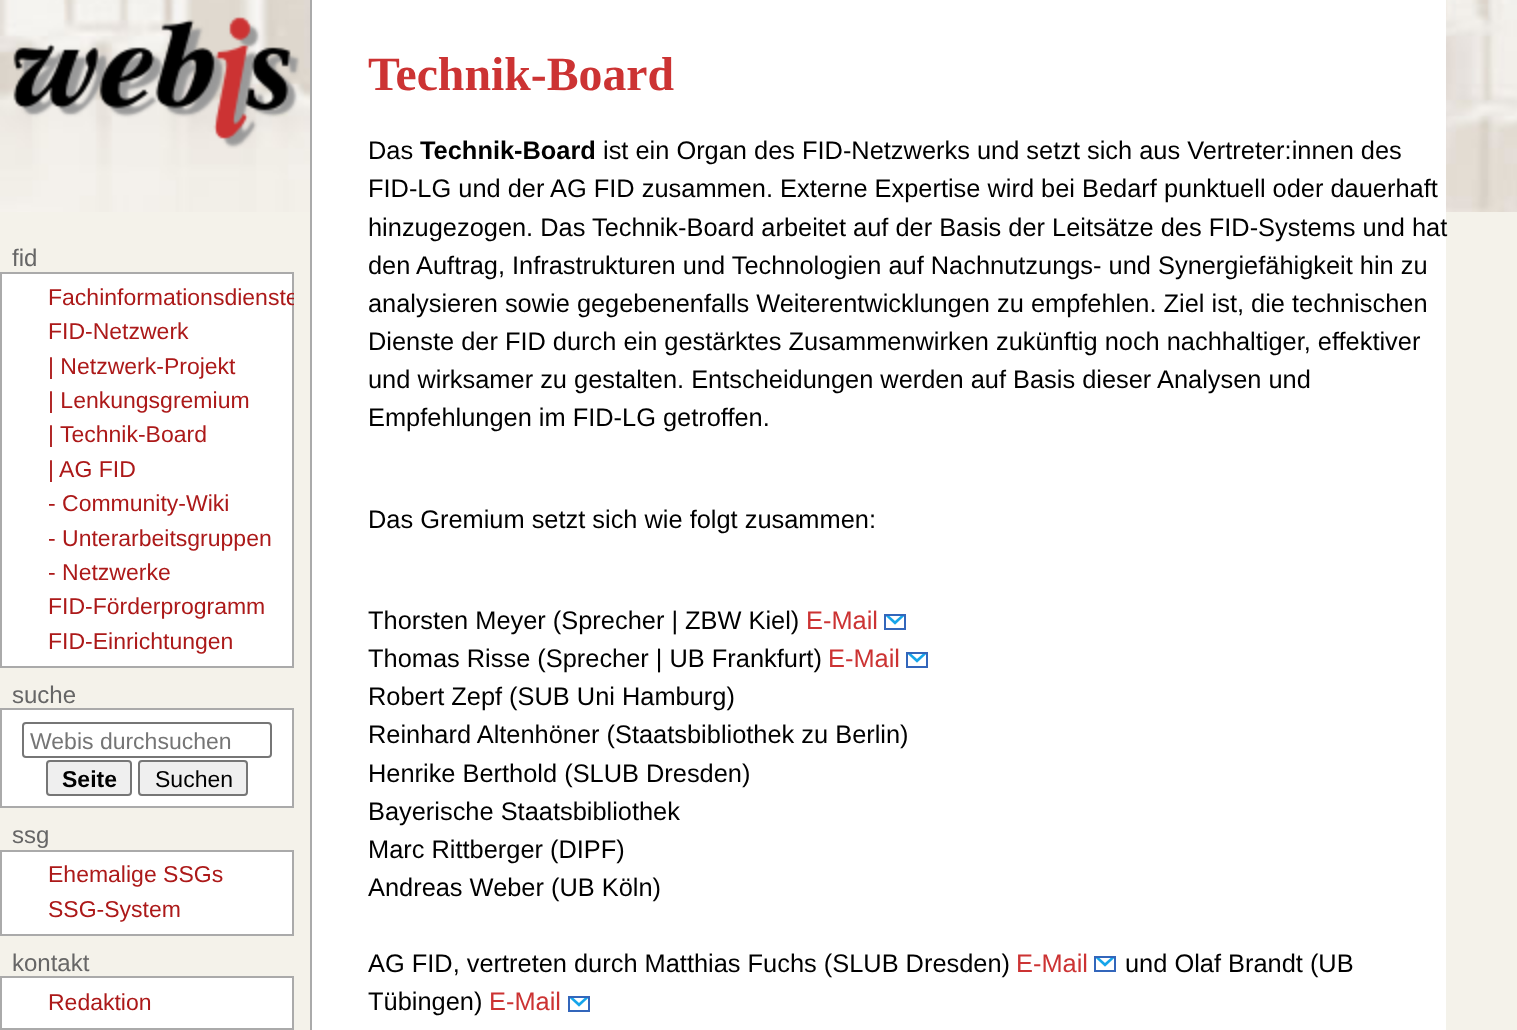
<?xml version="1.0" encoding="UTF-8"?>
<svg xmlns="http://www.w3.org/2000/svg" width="1517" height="1030">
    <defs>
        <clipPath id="clip1"><rect x="0" y="244" width="294" height="424"/></clipPath>
    </defs>
    <rect width="100%" height="100%" fill="#F4F2EA"/>
    <image x="0" y="0" width="1517" height="212" href="img_01.png"/>
    <image x="13" y="16" width="287" height="133" href="img_02.png"/>
    <text x="12" y="266" font-family="Liberation Sans" font-size="24" fill="#666666">fid</text>
    <rect x="1" y="273" width="292" height="394" fill="#FFFFFF" stroke="#AAAAAA" stroke-width="2"/>
    <g clip-path="url(#clip1)">
        <text x="48" y="305" font-family="Liberation Sans" font-size="23" fill="#AC1919">Fachinformationsdienste</text>
    </g>
    <text font-family="Liberation Sans" font-size="23" fill="#AC1919">
        <tspan x="48" y="339">FID-Netzwerk</tspan>
        <tspan x="48" y="374">| Netzwerk-Projekt</tspan>
        <tspan x="48" y="408">| Lenkungsgremium</tspan>
        <tspan x="48" y="442">| Technik-Board</tspan>
        <tspan x="48" y="477">| AG FID</tspan>
        <tspan x="48" y="511">- Community-Wiki</tspan>
        <tspan x="48" y="546">- Unterarbeitsgruppen</tspan>
        <tspan x="48" y="580">- Netzwerke</tspan>
        <tspan x="48" y="614">FID-Förderprogramm</tspan>
        <tspan x="48" y="649">FID-Einrichtungen</tspan>
    </text>
    <text x="12" y="703" font-family="Liberation Sans" font-size="24" fill="#666666">suche</text>
    <rect x="1" y="709" width="292" height="98" fill="#FFFFFF" stroke="#AAAAAA" stroke-width="2"/>
    <rect x="23" y="723" width="248" height="34" rx="3" fill="none" stroke="#767676" stroke-width="2"/>
    <text x="30" y="749" font-family="Liberation Sans" font-size="23" fill="#757575">Webis durchsuchen</text>
    <rect x="47" y="761" width="84" height="34" rx="3" fill="#EFEFEF" stroke="#767676" stroke-width="2"/>
    <text x="62" y="787" font-family="Liberation Sans" font-size="23" font-weight="700" fill="#000000">Seite</text>
    <rect x="139" y="761" width="108" height="34" rx="3" fill="#EFEFEF" stroke="#767676" stroke-width="2"/>
    <text x="155" y="787" font-family="Liberation Sans" font-size="23" fill="#000000">Suchen</text>
    <text x="12" y="843" font-family="Liberation Sans" font-size="24" fill="#666666">ssg</text>
    <rect x="1" y="851" width="292" height="84" fill="#FFFFFF" stroke="#AAAAAA" stroke-width="2"/>
    <text font-family="Liberation Sans" font-size="23" fill="#AC1919">
        <tspan x="48" y="882">Ehemalige SSGs</tspan>
        <tspan x="48" y="917">SSG-System</tspan>
    </text>
    <text x="12" y="971" font-family="Liberation Sans" font-size="24" fill="#666666">kontakt</text>
    <rect x="1" y="977" width="292" height="52" fill="#FFFFFF" stroke="#AAAAAA" stroke-width="2"/>
    <text x="48" y="1010" font-family="Liberation Sans" font-size="23" fill="#AC1919">Redaktion</text>
    <rect x="312" y="0" width="1134" height="1030" fill="#FFFFFF"/>
    <rect x="310" y="0" width="2" height="1030" fill="#AAAAAA"/>
    <text x="368" y="90" font-family="Liberation Serif" font-size="47.75" font-weight="700" fill="#CC3333">Technik-Board</text>
    <text x="368" y="159" font-family="Liberation Sans" font-size="25.4" fill="#000000">Das</text>
    <text x="420" y="159" font-family="Liberation Sans" font-size="25.4" font-weight="700" fill="#000000">Technik-Board</text>
    <text x="603" y="159" font-family="Liberation Sans" font-size="25.4" fill="#000000">ist ein Organ des FID-Netzwerks und setzt sich aus Vertreter:innen des</text>
    <text font-family="Liberation Sans" font-size="25.4" fill="#000000">
        <tspan x="368" y="197">FID-LG und der AG FID zusammen. Externe Expertise wird bei Bedarf punktuell oder dauerhaft</tspan>
        <tspan x="368" y="236">hinzugezogen. Das Technik-Board arbeitet auf der Basis der Leitsätze des FID-Systems und hat</tspan>
        <tspan x="368" y="274">den Auftrag, Infrastrukturen und Technologien auf Nachnutzungs- und Synergiefähigkeit hin zu</tspan>
        <tspan x="368" y="312">analysieren sowie gegebenenfalls Weiterentwicklungen zu empfehlen. Ziel ist, die technischen</tspan>
        <tspan x="368" y="350">Dienste der FID durch ein gestärktes Zusammenwirken zukünftig noch nachhaltiger, effektiver</tspan>
        <tspan x="368" y="388">und wirksamer zu gestalten. Entscheidungen werden auf Basis dieser Analysen und</tspan>
        <tspan x="368" y="426">Empfehlungen im FID-LG getroffen.</tspan>
    </text>
    <text x="368" y="528" font-family="Liberation Sans" font-size="25.4" fill="#000000">Das Gremium setzt sich wie folgt zusammen:</text>
    <text x="368" y="629" font-family="Liberation Sans" font-size="25.4" fill="#000000">Thorsten Meyer (Sprecher | ZBW Kiel)</text>
    <text x="806" y="629" font-family="Liberation Sans" font-size="25.4" fill="#CC3333">E-Mail</text>
    <image x="884" y="614" width="22" height="16" href="img_03.png"/>
    <text x="368" y="667" font-family="Liberation Sans" font-size="25.4" fill="#000000">Thomas Risse (Sprecher | UB Frankfurt)</text>
    <text x="828" y="667" font-family="Liberation Sans" font-size="25.4" fill="#CC3333">E-Mail</text>
    <image x="906" y="652" width="22" height="16" href="img_03.png"/>
    <text font-family="Liberation Sans" font-size="25.4" fill="#000000">
        <tspan x="368" y="705">Robert Zepf (SUB Uni Hamburg)</tspan>
        <tspan x="368" y="743">Reinhard Altenhöner (Staatsbibliothek zu Berlin)</tspan>
        <tspan x="368" y="782">Henrike Berthold (SLUB Dresden)</tspan>
        <tspan x="368" y="820">Bayerische Staatsbibliothek</tspan>
        <tspan x="368" y="858">Marc Rittberger (DIPF)</tspan>
        <tspan x="368" y="896">Andreas Weber (UB Köln)</tspan>
    </text>
    <text x="368" y="972" font-family="Liberation Sans" font-size="25.4" fill="#000000">AG FID, vertreten durch Matthias Fuchs (SLUB Dresden)</text>
    <text x="1016" y="972" font-family="Liberation Sans" font-size="25.4" fill="#CC3333">E-Mail</text>
    <image x="1094" y="956" width="22" height="16" href="img_03.png"/>
    <text x="1125" y="972" font-family="Liberation Sans" font-size="25.4" fill="#000000">und Olaf Brandt (UB</text>
    <text x="368" y="1010" font-family="Liberation Sans" font-size="25.4" fill="#000000">Tübingen)</text>
    <text x="489" y="1010" font-family="Liberation Sans" font-size="25.4" fill="#CC3333">E-Mail</text>
    <image x="568" y="996" width="22" height="16" href="img_03.png"/>
</svg>
